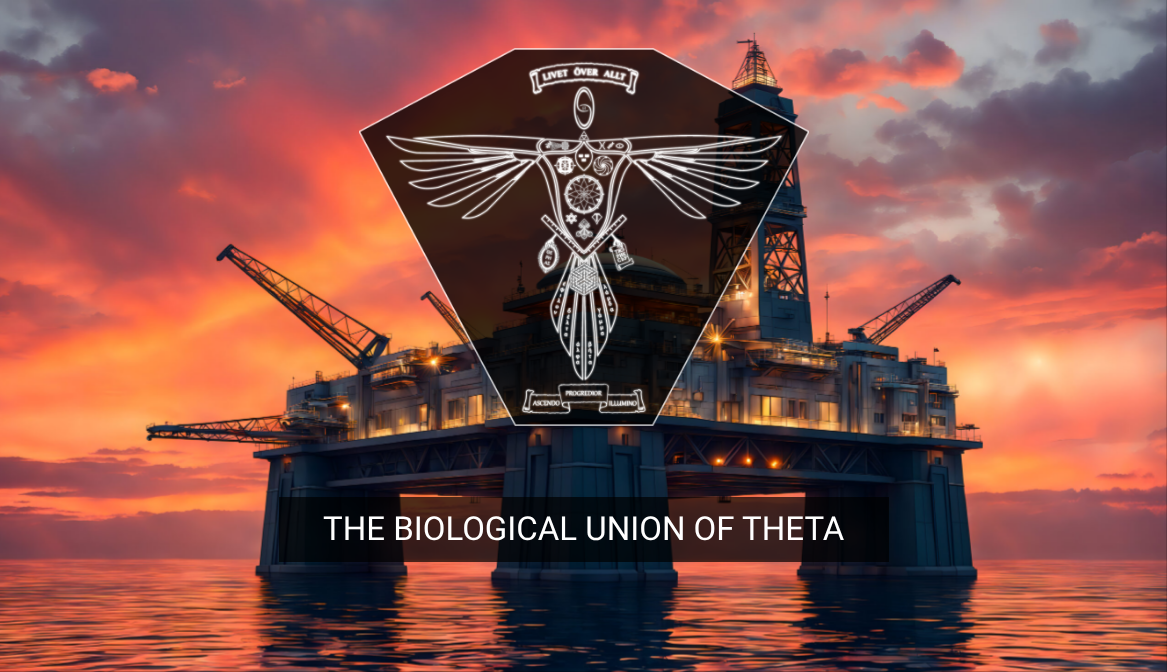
<?xml version="1.0" encoding="UTF-8"?>
<svg xmlns="http://www.w3.org/2000/svg" width="1167" height="672">
    <rect width="100%" height="100%" fill="#000000"/>
    <image x="0" y="0" width="1167" height="672" href="img_01.png"/>
    <image x="359" y="48" width="450" height="378" href="img_02.png"/>
    <rect x="279" y="497" width="610" height="65" fill="#000000" fill-opacity="0.69"/>
    <text x="323" y="540" font-family="Roboto" font-size="33" fill="#FFFFFF">THE BIOLOGICAL UNION OF THETA</text>
</svg>
